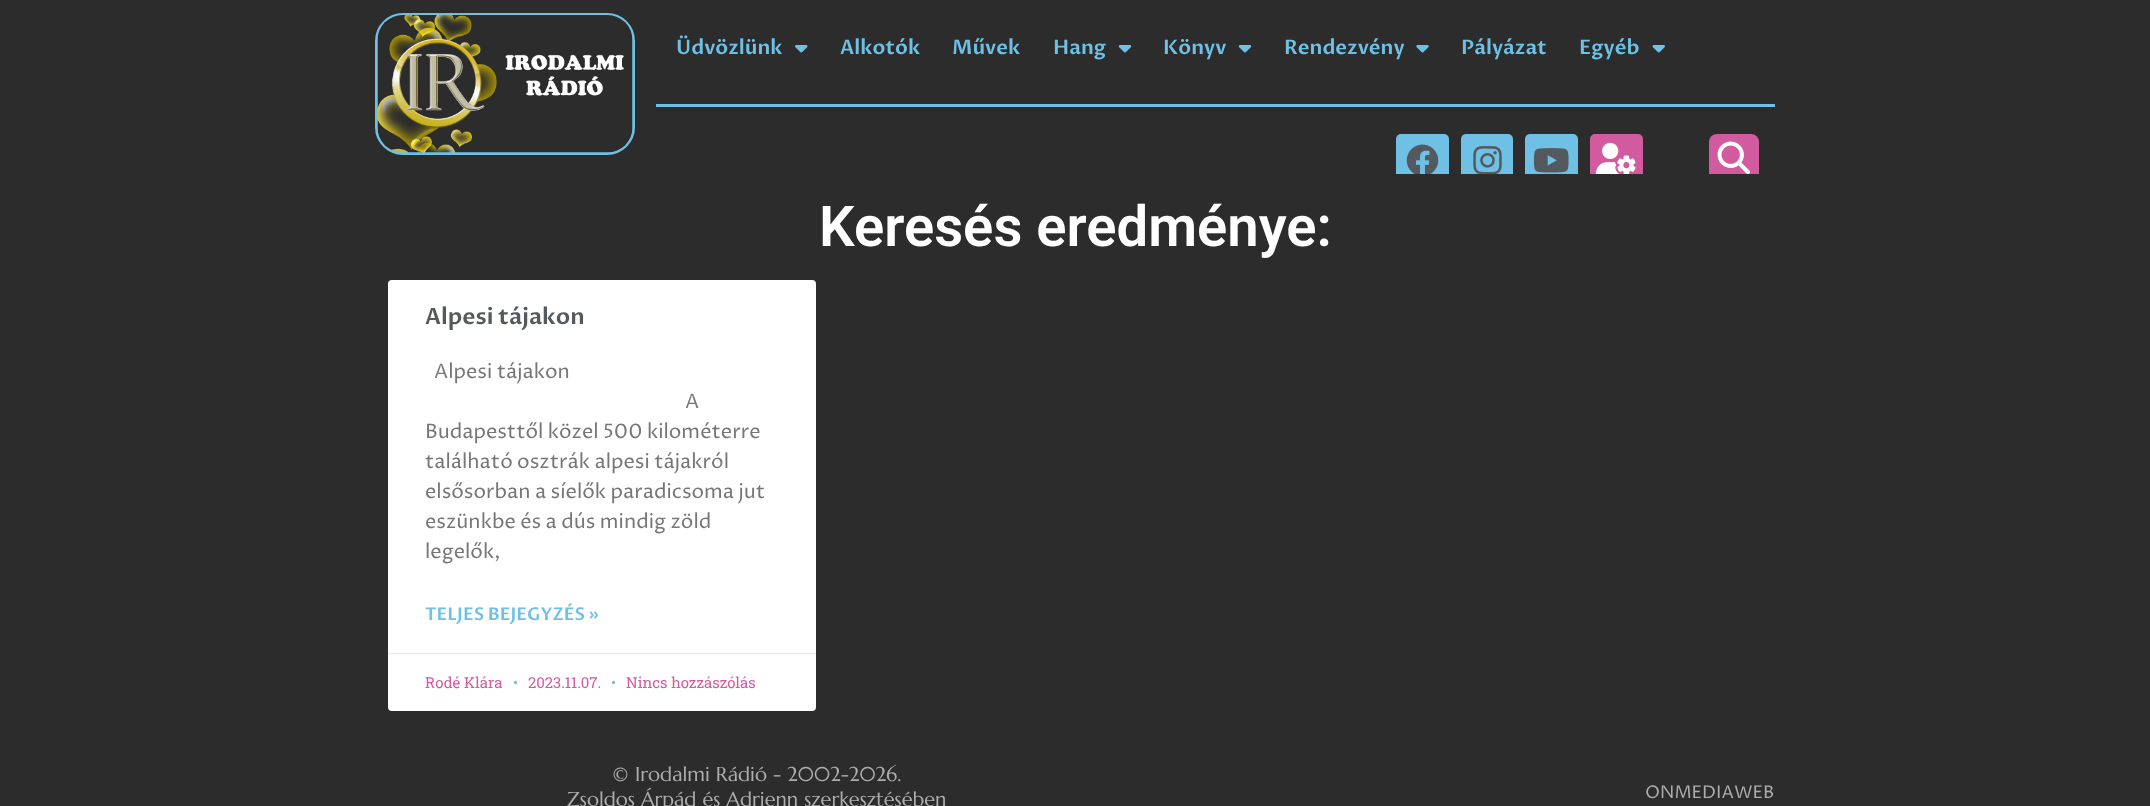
<?xml version="1.0" encoding="UTF-8"?>
<svg xmlns="http://www.w3.org/2000/svg" width="2150" height="806">
    <rect width="100%" height="100%" fill="#2C2C2C"/>
    <rect x="376.5" y="14.5" width="257" height="139" rx="26.5" fill="none" stroke="#6EC1E4" stroke-width="3"/>
    <image x="377" y="15" width="256" height="138" href="img_01.png"/>
    <text x="676" y="54" font-family="Proza Libre" font-size="20" font-weight="600" fill="#6EC1E4">Üdvözlünk</text>
    <image x="795" y="45" width="13" height="8" href="img_02.png"/>
    <text x="840" y="54" font-family="Proza Libre" font-size="20" font-weight="600" fill="#6EC1E4">Alkotók</text>
    <text x="952" y="54" font-family="Proza Libre" font-size="20" font-weight="600" fill="#6EC1E4">Művek</text>
    <text x="1053" y="54" font-family="Proza Libre" font-size="20" font-weight="600" fill="#6EC1E4">Hang</text>
    <image x="1118" y="45" width="14" height="8" href="img_03.png"/>
    <text x="1163" y="54" font-family="Proza Libre" font-size="20" font-weight="600" fill="#6EC1E4">Könyv</text>
    <image x="1238" y="45" width="14" height="8" href="img_03.png"/>
    <text x="1284" y="54" font-family="Proza Libre" font-size="20" font-weight="600" fill="#6EC1E4">Rendezvény</text>
    <image x="1416" y="45" width="13" height="8" href="img_04.png"/>
    <text x="1461" y="54" font-family="Proza Libre" font-size="20" font-weight="600" fill="#6EC1E4">Pályázat</text>
    <text x="1579" y="54" font-family="Proza Libre" font-size="20" font-weight="600" fill="#6EC1E4">Egyéb</text>
    <image x="1652" y="45" width="13" height="8" href="img_05.png"/>
    <rect x="656" y="104" width="1119" height="3" fill="#6EC1E4"/>
    <rect x="1396" y="134" width="53" height="52" rx="5" fill="#6EC1E4"/>
    <image x="1406" y="144" width="33" height="30" href="img_06.png"/>
    <rect x="1461" y="134" width="52" height="52" rx="5" fill="#6EC1E4"/>
    <image x="1473" y="146" width="29" height="28" href="img_07.png"/>
    <rect x="1525" y="134" width="53" height="52" rx="5" fill="#6EC1E4"/>
    <image x="1533" y="148" width="36" height="25" href="img_08.png"/>
    <rect x="1590" y="134" width="53" height="52" rx="5" fill="#D25B9F"/>
    <image x="1595" y="142" width="41" height="32" href="img_09.png"/>
    <rect x="1709" y="134" width="50" height="50" rx="8" fill="#D25B9F"/>
    <image x="1717" y="141" width="33" height="33" href="img_10.png"/>
    <rect x="1396" y="174" width="363" height="12" fill="#2C2C2C"/>
    <text x="819" y="246" font-family="Roboto" font-size="56.25" font-weight="600" fill="#FFFFFF">Keresés eredménye:</text>
    <rect x="388" y="280" width="428" height="431" rx="4" fill="#FFFFFF"/>
    <text x="425" y="324" font-family="Proza Libre" font-size="22.5" font-weight="600" fill="#54595F">Alpesi tájakon</text>
    <text x="434" y="378" font-family="Proza Libre" font-size="20" fill="#777777">Alpesi tájakon</text>
    <text x="685" y="408" font-family="Proza Libre" font-size="20" fill="#777777">A</text>
    <text font-family="Proza Libre" font-size="20" fill="#777777">
        <tspan x="425" y="438">Budapesttől közel 500 kilométerre</tspan>
        <tspan x="425" y="468">található osztrák alpesi tájakról</tspan>
        <tspan x="425" y="498">elsősorban a síelők paradicsoma jut</tspan>
        <tspan x="425" y="528">eszünkbe és a dús mindig zöld</tspan>
        <tspan x="425" y="558">legelők,</tspan>
    </text>
    <text x="425" y="620" font-family="Proza Libre" font-size="17.5" font-weight="600" fill="#6EC1E4">TELJES BEJEGYZÉS »</text>
    <rect x="388" y="653" width="428" height="1" fill="#EAEAEA"/>
    <text x="425" y="688" font-family="Roboto Slab" font-size="15" fill="#D25B9F">Rodé Klára</text>
    <text x="513" y="688" font-family="Roboto Slab" font-size="15" fill="#6EC1E4">•</text>
    <text x="528" y="688" font-family="Roboto Slab" font-size="15" fill="#D25B9F">2023.11.07.</text>
    <text x="611" y="688" font-family="Roboto Slab" font-size="15" fill="#6EC1E4">•</text>
    <text x="626" y="688" font-family="Roboto Slab" font-size="15" fill="#D25B9F">Nincs hozzászólás</text>
    <text x="612" y="781" font-family="Marcellus" font-size="20" fill="#ADADAD">© Irodalmi Rádió - 2002-2026.</text>
    <text x="567" y="806" font-family="Marcellus" font-size="20" fill="#ADADAD">Zsoldos Árpád és Adrienn szerkesztésében</text>
    <text x="1645" y="798" font-family="Proza Libre" font-size="17.5" fill="#ADADAD">ONMEDIAWEB</text>
</svg>
